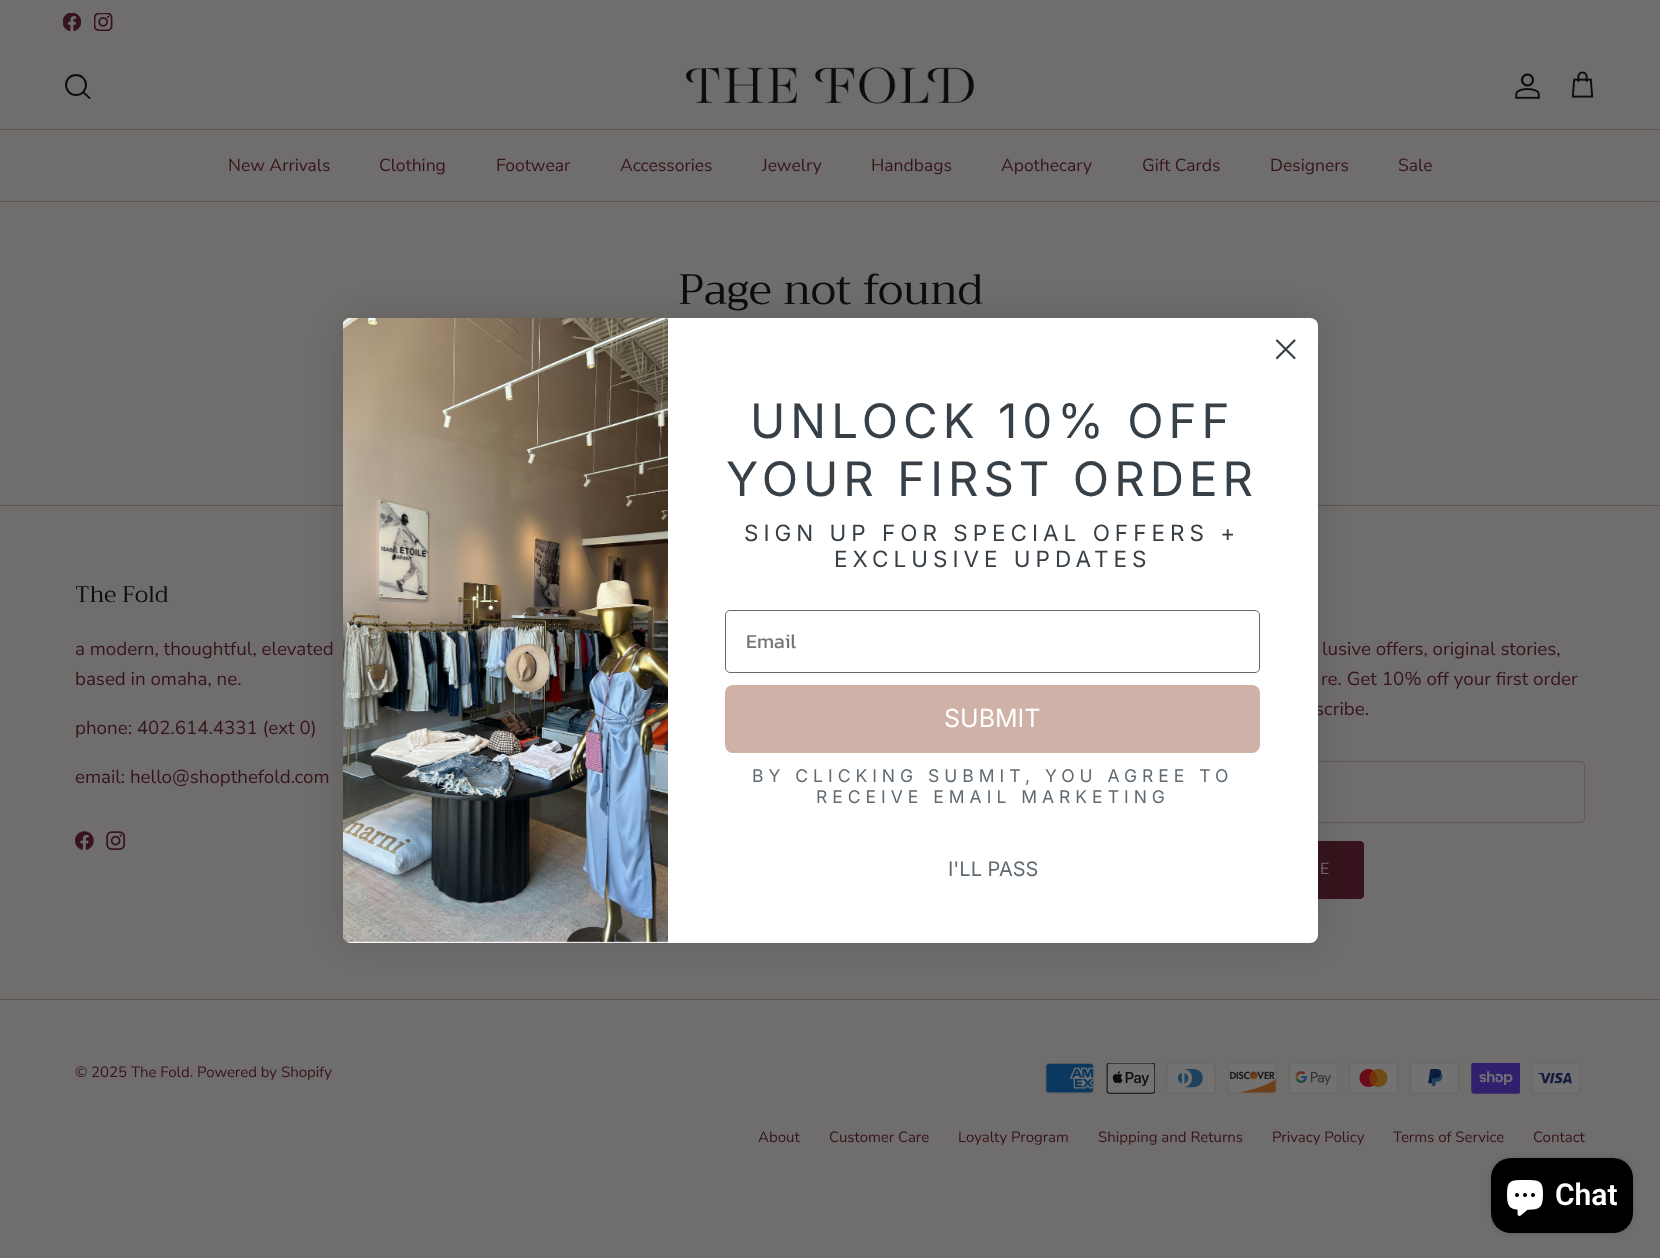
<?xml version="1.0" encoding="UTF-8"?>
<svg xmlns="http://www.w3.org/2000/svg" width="1660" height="1258">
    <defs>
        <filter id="blur1" x="-50%" y="-200%" width="200%" height="500%"><feGaussianBlur stdDeviation="19"/></filter>
        <filter id="blur2" x="-50%" y="-200%" width="200%" height="500%"><feGaussianBlur stdDeviation="3"/></filter>
    </defs>
    <rect width="100%" height="100%" fill="#706E6D"/>
    <image x="63" y="13" width="18" height="18" href="img_01.png"/>
    <image x="94" y="13" width="19" height="18" href="img_02.png"/>
    <rect x="0" y="129" width="1660" height="1" fill="#5F534F"/>
    <circle cx="76" cy="85" r="10" fill="none" stroke="#0C0C0C" stroke-width="1.9"/>
    <path d="M 83.5 92.5 L 89.5 98" fill="none" stroke="#0C0C0C" stroke-width="1.9" stroke-linecap="square"/>
    <image x="686" y="67" width="288" height="37" href="img_03.png"/>
    <image x="1515" y="73" width="25" height="26" href="img_04.png"/>
    <image x="1571" y="71" width="23" height="27" href="img_05.png"/>
    <rect x="0" y="201" width="1660" height="1" fill="#5F534F"/>
    <text x="228" y="171" font-family="Nunito Sans" font-size="17.5" fill="#37141D">New Arrivals</text>
    <text x="379" y="171" font-family="Nunito Sans" font-size="17.5" fill="#37141D">Clothing</text>
    <text x="496" y="171" font-family="Nunito Sans" font-size="17.5" fill="#37141D">Footwear</text>
    <text x="620" y="171" font-family="Nunito Sans" font-size="17.5" fill="#37141D">Accessories</text>
    <text x="762" y="171" font-family="Nunito Sans" font-size="17.5" fill="#37141D">Jewelry</text>
    <text x="871" y="171" font-family="Nunito Sans" font-size="17.5" fill="#37141D">Handbags</text>
    <text x="1001" y="171" font-family="Nunito Sans" font-size="17.5" fill="#37141D">Apothecary</text>
    <text x="1142" y="171" font-family="Nunito Sans" font-size="17.5" fill="#37141D">Gift Cards</text>
    <text x="1270" y="171" font-family="Nunito Sans" font-size="17.5" fill="#37141D">Designers</text>
    <text x="1398" y="171" font-family="Nunito Sans" font-size="17.5" fill="#37141D">Sale</text>
    <text x="678" y="304" font-family="Trirong" font-size="42.5" fill="#0C0C0C">Page not found</text>
    <rect x="0" y="505" width="1660" height="1" fill="#5F534F"/>
    <rect x="1198.5" y="761.5" width="386" height="61" rx="3.5" fill="none" stroke="#625859"/>
    <rect x="1198.5" y="841.5" width="165" height="57" rx="3.5" fill="#37141D" stroke="#37141D"/>
    <rect x="0" y="999" width="1660" height="1" fill="#5F534F"/>
    <rect x="343" y="318" width="975" height="625" rx="8" fill="#000000" fill-opacity="0.15" filter="url(#blur1)"/>
    <text x="1315" y="715" font-family="Nunito Sans" font-size="18.75" fill="#37141D">scribe.</text>
    <rect x="343" y="318" width="975" height="625" rx="8" fill="#FFFFFF"/>
    <path d="M 1277 340.5 L 1294.5 358 M 1277 358 L 1294.5 340.5 Z" fill="none" stroke="#373F47" stroke-width="2.2" stroke-linecap="round" stroke-linejoin="round"/>
    <image x="343" y="318" width="325" height="625" href="img_06.png"/>
    <text x="750" y="438" font-family="Inter" font-size="47.5" letter-spacing="5" fill="#373F47">UNLOCK 10% OFF</text>
    <text x="726" y="496" font-family="Inter" font-size="47.5" letter-spacing="5" fill="#373F47">YOUR FIRST ORDER</text>
    <text x="744" y="541" font-family="Inter" font-size="22.5" letter-spacing="5" fill="#373F47">SIGN UP FOR SPECIAL OFFERS +</text>
    <text x="834" y="567" font-family="Inter" font-size="22.5" letter-spacing="5" fill="#373F47">EXCLUSIVE UPDATES</text>
    <rect x="725.5" y="610.5" width="534" height="62" rx="4.5" fill="none" stroke="#606A72"/>
    <text x="746" y="648" font-family="Kanit" font-size="20" fill="#767676">Email</text>
    <rect x="725" y="685" width="535" height="68" rx="8" fill="#D0B1A7"/>
    <text x="944" y="727" font-family="Inter" font-size="25" fill="#FFFFFF">SUBMIT</text>
    <text x="752" y="782" font-family="Inter" font-size="17.5" letter-spacing="5" fill="#606A72">BY CLICKING SUBMIT, YOU AGREE TO</text>
    <text x="816" y="803" font-family="Inter" font-size="17.5" letter-spacing="5" fill="#606A72">RECEIVE EMAIL MARKETING</text>
    <text x="948" y="876" font-family="Inter" font-size="20" fill="#606A72">I'LL PASS</text>
    <text x="75" y="602" font-family="Trirong" font-size="22.5" fill="#0C0C0C">The Fold</text>
    <text font-family="Nunito Sans" font-size="18.75" fill="#37141D">
        <tspan x="75" y="655">a modern, thoughtful, elevated</tspan>
        <tspan x="75" y="685">based in omaha, ne.</tspan>
    </text>
    <text x="75" y="734" font-family="Nunito Sans" font-size="18.75" fill="#37141D">phone: 402.614.4331 (ext 0)</text>
    <text x="75" y="783" font-family="Nunito Sans" font-size="18.75" fill="#37141D">email: hello@shopthefold.com</text>
    <image x="75" y="831" width="19" height="19" href="img_07.png"/>
    <image x="106" y="831" width="19" height="19" href="img_08.png"/>
    <text x="1322" y="655" font-family="Nunito Sans" font-size="18.75" fill="#37141D">lusive offers, original stories,</text>
    <text x="1321" y="685" font-family="Nunito Sans" font-size="18.75" fill="#37141D">re. Get 10% off your first order</text>
    <text x="1320" y="874" font-family="Nunito Sans" font-size="16" letter-spacing="1" fill="#706E6D">E</text>
    <text x="75" y="1077" font-family="Nunito Sans" font-size="15" fill="#37141D">© 2025 The Fold. Powered by Shopify</text>
    <image x="1045" y="1063" width="50" height="31" href="img_09.png"/>
    <image x="1106" y="1063" width="49" height="31" href="img_10.png"/>
    <image x="1166" y="1063" width="50" height="31" href="img_11.png"/>
    <image x="1228" y="1063" width="49" height="31" href="img_12.png"/>
    <image x="1289" y="1063" width="49" height="31" href="img_13.png"/>
    <image x="1349" y="1063" width="49" height="31" href="img_14.png"/>
    <image x="1410" y="1063" width="50" height="31" href="img_15.png"/>
    <image x="1471" y="1063" width="49" height="31" href="img_16.png"/>
    <image x="1531" y="1063" width="50" height="31" href="img_17.png"/>
    <text x="758" y="1142" font-family="Nunito Sans" font-size="15" fill="#37141D">About</text>
    <text x="829" y="1142" font-family="Nunito Sans" font-size="15" fill="#37141D">Customer Care</text>
    <text x="958" y="1142" font-family="Nunito Sans" font-size="15" fill="#37141D">Loyalty Program</text>
    <text x="1098" y="1142" font-family="Nunito Sans" font-size="15" fill="#37141D">Shipping and Returns</text>
    <text x="1272" y="1142" font-family="Nunito Sans" font-size="15" fill="#37141D">Privacy Policy</text>
    <text x="1393" y="1142" font-family="Nunito Sans" font-size="15" fill="#37141D">Terms of Service</text>
    <text x="1533" y="1142" font-family="Nunito Sans" font-size="15" fill="#37141D">Contact</text>
    <rect x="1491" y="1158" width="142" height="75" rx="20" fill="#000000" fill-opacity="0.15" filter="url(#blur2)"/>
    <rect x="1491" y="1158" width="142" height="75" rx="20" fill="#000000"/>
    <image x="1507" y="1180" width="36" height="36" href="img_18.png"/>
    <text x="1555" y="1205" font-family="Roboto" font-size="30" font-weight="600" fill="#FFFFFF">Chat</text>
</svg>
